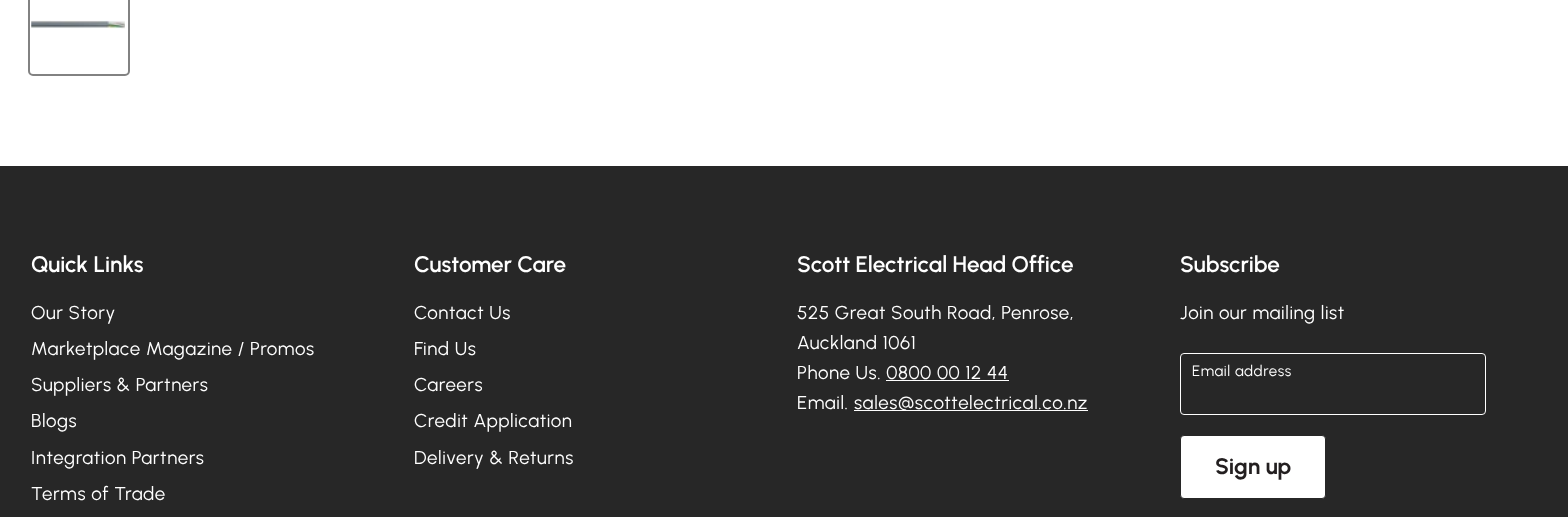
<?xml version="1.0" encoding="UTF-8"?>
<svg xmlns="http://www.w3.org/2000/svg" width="1568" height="517">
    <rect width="100%" height="100%" fill="#FFFFFF"/>
    <rect x="29" y="-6" width="100" height="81" rx="4" fill="none" stroke="#828282" stroke-width="2"/>
    <image x="31" y="20" width="94" height="9" href="img_01.png"/>
    <rect x="0" y="166" width="1568" height="351" fill="#272727"/>
    <text x="31" y="272" font-family="Urbanist" font-size="22.5" font-weight="600" fill="#FFFFFF">Quick Links</text>
    <text font-family="Urbanist" font-size="18.75" letter-spacing="0.6" fill="#FFFFFF">
        <tspan x="31" y="319">Our Story</tspan>
        <tspan x="31" y="355">Marketplace Magazine / Promos</tspan>
        <tspan x="31" y="391">Suppliers &amp; Partners</tspan>
        <tspan x="31" y="427">Blogs</tspan>
        <tspan x="31" y="464">Integration Partners</tspan>
        <tspan x="31" y="500">Terms of Trade</tspan>
    </text>
    <text x="414" y="272" font-family="Urbanist" font-size="22.5" font-weight="600" fill="#FFFFFF">Customer Care</text>
    <text font-family="Urbanist" font-size="18.75" letter-spacing="0.6" fill="#FFFFFF">
        <tspan x="414" y="319">Contact Us</tspan>
        <tspan x="414" y="355">Find Us</tspan>
        <tspan x="414" y="391">Careers</tspan>
        <tspan x="414" y="427">Credit Application</tspan>
        <tspan x="414" y="464">Delivery &amp; Returns</tspan>
    </text>
    <text x="797" y="272" font-family="Urbanist" font-size="22.5" font-weight="600" fill="#FFFFFF">Scott Electrical Head Office</text>
    <text font-family="Urbanist" font-size="18.75" letter-spacing="0.6" fill="#FFFFFF">
        <tspan x="797" y="319">525 Great South Road, Penrose,</tspan>
        <tspan x="797" y="349">Auckland 1061</tspan>
        <tspan x="797" y="379">Phone Us. 0800 00 12 44</tspan>
    </text>
    <rect x="886" y="380" width="123" height="1" fill="#FFFFFF"/>
    <text x="797" y="409" font-family="Urbanist" font-size="18.75" letter-spacing="0.6" fill="#FFFFFF">Email.</text>
    <rect x="854" y="410" width="234" height="1" fill="#FFFFFF"/>
    <text x="854" y="409" font-family="Urbanist" font-size="18.75" letter-spacing="0.6" fill="#FFFFFF">sales@scottelectrical.co.nz</text>
    <text x="1180" y="272" font-family="Urbanist" font-size="22.5" font-weight="600" fill="#FFFFFF">Subscribe</text>
    <text x="1180" y="319" font-family="Urbanist" font-size="18.75" letter-spacing="0.6" fill="#FFFFFF">Join our mailing list</text>
    <rect x="1180.5" y="353.5" width="305" height="61" rx="3.5" fill="none" stroke="#FFFFFF"/>
    <text x="1192" y="376" font-family="Urbanist" font-size="15" letter-spacing="0.6" fill="#FFFFFF">Email address</text>
    <rect x="1180.5" y="435.5" width="145" height="63" rx="3.5" fill="#FFFFFF" stroke="#272727"/>
    <text x="1215" y="474" font-family="Urbanist" font-size="22.5" font-weight="700" fill="#231F20">Sign up</text>
</svg>
